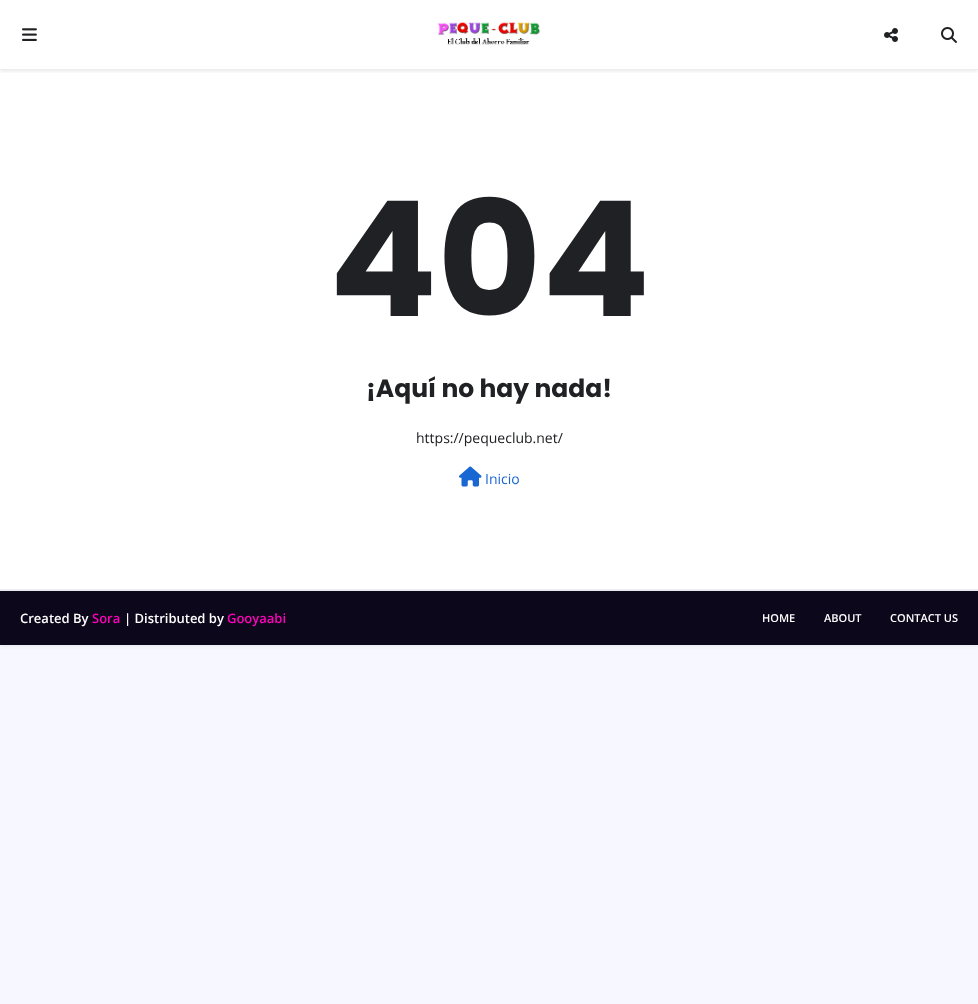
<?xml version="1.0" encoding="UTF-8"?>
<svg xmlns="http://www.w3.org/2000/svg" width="978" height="1004">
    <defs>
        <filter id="blur1" x="-50%" y="-200%" width="200%" height="500%"><feGaussianBlur stdDeviation="2.5"/></filter>
        <clipPath id="clip1"><rect x="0" y="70" width="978" height="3"/></clipPath>
        <filter id="blur2" x="-50%" y="-200%" width="200%" height="500%"><feGaussianBlur stdDeviation="2"/></filter>
    </defs>
    <rect width="100%" height="100%" fill="#F7F7FF"/>
    <rect x="0" y="0" width="978" height="645" fill="#000000" fill-opacity="0.1" filter="url(#blur1)"/>
    <rect x="0" y="0" width="978" height="589" fill="#FFFFFF"/>
    <g clip-path="url(#clip1)">
        <rect x="0" y="1" width="978" height="70" fill="#000000" fill-opacity="0.1" filter="url(#blur2)"/>
    </g>
    <rect x="0" y="69" width="978" height="1" fill="#EEEEEE"/>
    <image x="22" y="28" width="15" height="13" href="img_01.png"/>
    <image x="438" y="22" width="102" height="23" href="img_02.png"/>
    <image x="884" y="28" width="14" height="14" href="img_03.png"/>
    <image x="941" y="27" width="16" height="16" href="img_04.png"/>
    <text x="329" y="316" font-family="Poppins" font-size="160" font-weight="700" fill="#202124">404</text>
    <text x="366" y="397" font-family="Poppins" font-size="25" font-weight="700" fill="#202124">¡Aquí no hay nada!</text>
    <text x="416" y="443" font-family="Open Sans" font-size="14" fill="#202124">https://pequeclub.net/</text>
    <image x="459" y="466" width="23" height="21" href="img_05.png"/>
    <text x="485" y="484" font-family="Open Sans" font-size="14" fill="#1967D2">Inicio</text>
    <rect x="0" y="591" width="978" height="54" fill="#0C071B"/>
    <rect x="0" y="589" width="978" height="2" fill="#EBEBF3"/>
    <text x="20" y="623" font-family="Open Sans" font-size="13" font-weight="600" fill="#FFFFFF">Created By</text>
    <text x="92" y="623" font-family="Open Sans" font-size="13" font-weight="600" fill="#FF00BA">Sora</text>
    <text x="124" y="623" font-family="Open Sans" font-size="13" font-weight="600" fill="#FFFFFF">| Distributed by</text>
    <text x="227" y="623" font-family="Open Sans" font-size="13" font-weight="600" fill="#FF00BA">Gooyaabi</text>
    <text x="762" y="622" font-family="Open Sans" font-size="11" font-weight="600" fill="#FFFFFF">HOME</text>
    <text x="824" y="622" font-family="Open Sans" font-size="11" font-weight="600" fill="#FFFFFF">ABOUT</text>
    <text x="890" y="622" font-family="Open Sans" font-size="11" font-weight="600" fill="#FFFFFF">CONTACT US</text>
</svg>
